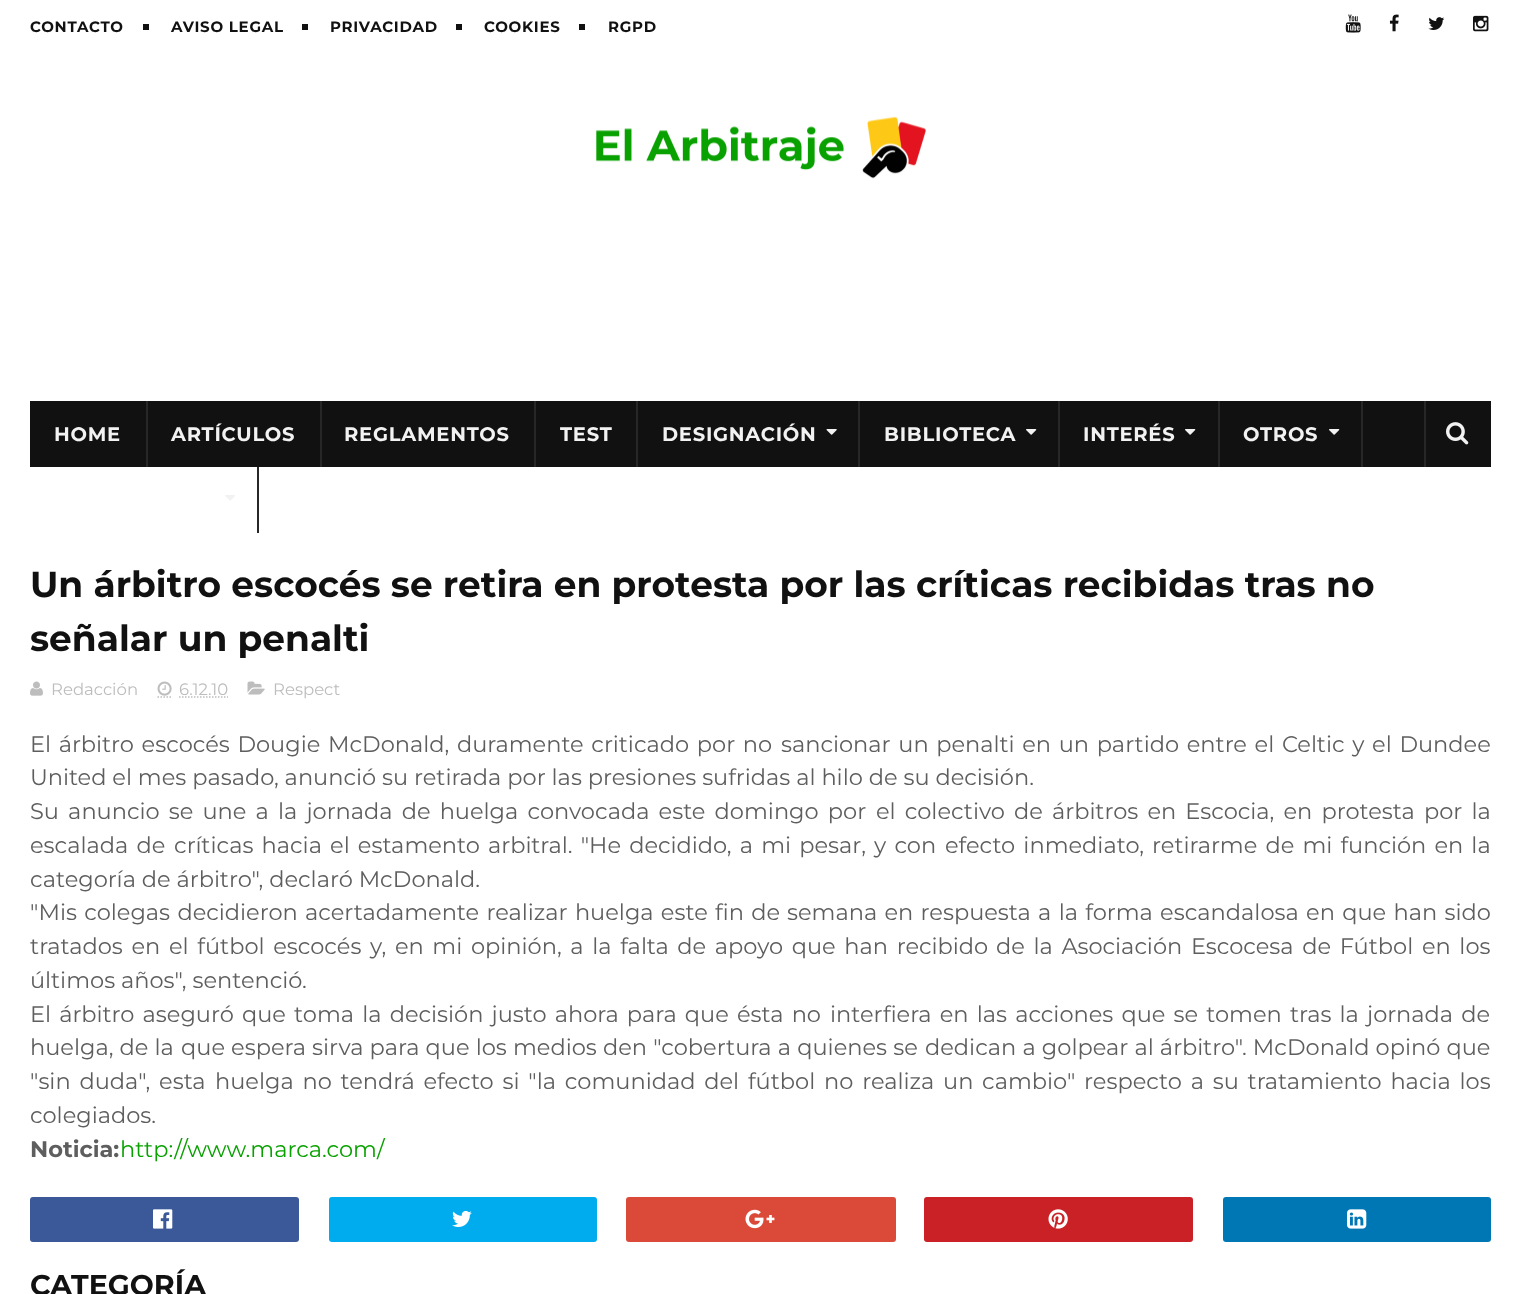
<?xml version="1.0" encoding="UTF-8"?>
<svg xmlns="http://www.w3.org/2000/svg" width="1521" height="1294">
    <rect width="100%" height="100%" fill="#FFFFFF"/>
    <text x="30" y="32" font-family="Montserrat" font-size="15" font-weight="700" letter-spacing="0.75" fill="#111111">CONTACTO</text>
    <rect x="143" y="24" width="6" height="6" fill="#111111"/>
    <text x="171" y="32" font-family="Montserrat" font-size="15" font-weight="700" letter-spacing="0.75" fill="#111111">AVISO LEGAL</text>
    <rect x="302" y="24" width="6" height="6" fill="#111111"/>
    <text x="330" y="32" font-family="Montserrat" font-size="15" font-weight="700" letter-spacing="0.75" fill="#111111">PRIVACIDAD</text>
    <rect x="456" y="24" width="6" height="6" fill="#111111"/>
    <text x="484" y="32" font-family="Montserrat" font-size="15" font-weight="700" letter-spacing="0.75" fill="#111111">COOKIES</text>
    <rect x="579" y="24" width="6" height="6" fill="#111111"/>
    <text x="608" y="32" font-family="Montserrat" font-size="15" font-weight="700" letter-spacing="0.75" fill="#111111">RGPD</text>
    <image x="1345" y="14" width="16" height="19" href="img_01.png"/>
    <image x="1389" y="14" width="10" height="18" href="img_02.png"/>
    <image x="1428" y="17" width="17" height="13" href="img_03.png"/>
    <image x="1473" y="15" width="16" height="17" href="img_04.png"/>
    <image x="596" y="116" width="330" height="63" href="img_05.png"/>
    <rect x="30" y="401" width="1461" height="66" fill="#111111"/>
    <rect x="146" y="401" width="2" height="66" fill="#272727"/>
    <text x="54" y="441" font-family="Montserrat" font-size="19.5" font-weight="700" letter-spacing="0.75" fill="#F2F2F2">HOME</text>
    <rect x="320" y="401" width="2" height="66" fill="#272727"/>
    <text x="171" y="441" font-family="Montserrat" font-size="19.5" font-weight="700" letter-spacing="0.75" fill="#F2F2F2">ARTÍCULOS</text>
    <rect x="534" y="401" width="2" height="66" fill="#272727"/>
    <text x="344" y="441" font-family="Montserrat" font-size="19.5" font-weight="700" letter-spacing="0.75" fill="#F2F2F2">REGLAMENTOS</text>
    <rect x="636" y="401" width="2" height="66" fill="#272727"/>
    <text x="560" y="441" font-family="Montserrat" font-size="19.5" font-weight="700" letter-spacing="0.75" fill="#F2F2F2">TEST</text>
    <rect x="858" y="401" width="2" height="66" fill="#272727"/>
    <text x="662" y="441" font-family="Montserrat" font-size="19.5" font-weight="700" letter-spacing="0.75" fill="#F2F2F2">DESIGNACIÓN</text>
    <image x="826" y="429" width="11" height="6" href="img_06.png"/>
    <rect x="1058" y="401" width="2" height="66" fill="#272727"/>
    <text x="884" y="441" font-family="Montserrat" font-size="19.5" font-weight="700" letter-spacing="0.75" fill="#F2F2F2">BIBLIOTECA</text>
    <image x="1026" y="429" width="11" height="6" href="img_07.png"/>
    <rect x="1218" y="401" width="2" height="66" fill="#272727"/>
    <text x="1083" y="441" font-family="Montserrat" font-size="19.5" font-weight="700" letter-spacing="0.75" fill="#F2F2F2">INTERÉS</text>
    <image x="1185" y="429" width="11" height="6" href="img_07.png"/>
    <rect x="1361" y="401" width="2" height="66" fill="#272727"/>
    <text x="1243" y="441" font-family="Montserrat" font-size="19.5" font-weight="700" letter-spacing="0.75" fill="#F2F2F2">OTROS</text>
    <image x="1329" y="429" width="11" height="6" href="img_07.png"/>
    <rect x="257" y="467" width="2" height="66" fill="#272727"/>
    <image x="225" y="495" width="10" height="6" href="img_08.png"/>
    <rect x="1424" y="401" width="2" height="66" fill="#272727"/>
    <image x="1446" y="422" width="23" height="23" href="img_09.png"/>
    <text font-family="Montserrat" font-size="36" font-weight="700" fill="#111111">
        <tspan x="30" y="597">Un árbitro escocés se retira en protesta por las críticas recibidas tras no</tspan>
        <tspan x="30" y="651">señalar un penalti</tspan>
    </text>
    <image x="30" y="681" width="13" height="15" href="img_10.png"/>
    <text x="51" y="695" font-family="Montserrat" font-size="16.5" font-weight="100" fill="#BDBDBD">Redacción</text>
    <image x="157" y="681" width="15" height="15" href="img_11.png"/>
    <text x="179" y="695" font-family="Montserrat" font-size="16.5" font-weight="100" fill="#BDBDBD">6.12.10</text>
    <path d="M 157.5 697 H 171.5" fill="none" stroke="#BDBDBD" stroke-width="1.5" stroke-dasharray="1.5 1.5"/>
    <path d="M 179 697 H 228" fill="none" stroke="#BDBDBD" stroke-width="1.5" stroke-dasharray="1.5 1.5"/>
    <image x="247" y="681" width="18" height="14" href="img_12.png"/>
    <text x="273" y="695" font-family="Montserrat" font-size="16.5" font-weight="100" fill="#BDBDBD">Respect</text>
    <text x="30" y="752" word-spacing="1.75" font-family="Montserrat" font-size="22.5" font-weight="100" fill="#5E5E5E">El árbitro escocés Dougie McDonald, duramente criticado por no</text>
    <text x="781" y="752" word-spacing="1.75" font-family="Montserrat" font-size="22.5" font-weight="100" fill="#5E5E5E">sancionar un penalti en un partido entre el Celtic y el Dundee</text>
    <text font-family="Montserrat" font-size="22.5" font-weight="100" fill="#5E5E5E">
        <tspan x="30" y="785">United el mes pasado, anunció su retirada por las presiones sufridas al hilo de su decisión.</tspan>
        <tspan x="30" y="819" word-spacing="3.25">Su anuncio se une a la jornada de huelga convocada este domingo por</tspan>
    </text>
    <text x="876" y="819" word-spacing="3.25" font-family="Montserrat" font-size="22.5" font-weight="100" fill="#5E5E5E">el colectivo de árbitros en Escocia, en protesta por la</text>
    <text x="30" y="853" word-spacing="2.25" font-family="Montserrat" font-size="22.5" font-weight="100" fill="#5E5E5E">escalada de</text>
    <text x="174" y="853" word-spacing="2.25" font-family="Montserrat" font-size="22.5" font-weight="100" fill="#5E5E5E">críticas hacia el estamento arbitral. "He decidido, a mi pesar, y con</text>
    <text x="945" y="853" word-spacing="2.25" font-family="Montserrat" font-size="22.5" font-weight="100" fill="#5E5E5E">efecto inmediato, retirarme de mi función en la</text>
    <text font-family="Montserrat" font-size="22.5" font-weight="100" fill="#5E5E5E">
        <tspan x="30" y="887">categoría de árbitro", declaró McDonald.</tspan>
        <tspan x="30" y="920" word-spacing="1.4">"Mis colegas decidieron acertadamente realizar huelga este fin de</tspan>
    </text>
    <text x="787" y="920" word-spacing="1.4" font-family="Montserrat" font-size="22.5" font-weight="100" fill="#5E5E5E">semana en respuesta a la forma escandalosa en que han sido</text>
    <text x="30" y="954" word-spacing="2.75" font-family="Montserrat" font-size="22.5" font-weight="100" fill="#5E5E5E">tratados en</text>
    <text x="169" y="954" word-spacing="2.75" font-family="Montserrat" font-size="22.5" font-weight="100" fill="#5E5E5E">el fútbol escocés y, en mi opinión, a la falta de apoyo que han recibido</text>
    <text x="996" y="954" word-spacing="2.75" font-family="Montserrat" font-size="22.5" font-weight="100" fill="#5E5E5E">de la Asociación Escocesa de Fútbol en los</text>
    <text font-family="Montserrat" font-size="22.5" font-weight="100" fill="#5E5E5E">
        <tspan x="30" y="988">últimos años", sentenció.</tspan>
        <tspan x="30" y="1022" word-spacing="2.25">El árbitro aseguró que toma la decisión justo ahora para que ésta no</tspan>
    </text>
    <text x="830" y="1022" word-spacing="2.25" font-family="Montserrat" font-size="22.5" font-weight="100" fill="#5E5E5E">interfiera en las acciones que se tomen tras la jornada de</text>
    <text x="30" y="1055" word-spacing="0.25" font-family="Montserrat" font-size="22.5" font-weight="100" fill="#5E5E5E">huelga, de la</text>
    <text x="181" y="1055" word-spacing="0.25" font-family="Montserrat" font-size="22.5" font-weight="100" fill="#5E5E5E">que espera sirva para que los medios den "cobertura a quienes se</text>
    <text x="925" y="1055" word-spacing="0.25" font-family="Montserrat" font-size="22.5" font-weight="100" fill="#5E5E5E">dedican a golpear al árbitro". McDonald opinó que</text>
    <text x="30" y="1089" word-spacing="2.9" font-family="Montserrat" font-size="22.5" font-weight="100" fill="#5E5E5E">"sin duda", esta</text>
    <text x="215" y="1089" word-spacing="2.9" font-family="Montserrat" font-size="22.5" font-weight="100" fill="#5E5E5E">huelga no tendrá efecto si "la comunidad del fútbol no realiza un</text>
    <text x="982" y="1089" word-spacing="2.9" font-family="Montserrat" font-size="22.5" font-weight="100" fill="#5E5E5E">cambio" respecto a su tratamiento hacia los</text>
    <text x="30" y="1123" font-family="Montserrat" font-size="22.5" font-weight="100" fill="#5E5E5E">colegiados.</text>
    <text x="30" y="1157" font-family="Montserrat" font-size="22.5" font-weight="700" fill="#5E5E5E">Noticia:</text>
    <text x="120" y="1157" font-family="Montserrat" font-size="22.5" font-weight="100" fill="#08A100">http://www.marca.com/</text>
    <rect x="30" y="1197" width="269" height="45" rx="3" fill="#3B5998"/>
    <image x="153" y="1209" width="20" height="20" href="img_13.png"/>
    <rect x="329" y="1197" width="268" height="45" rx="3" fill="#00ACEE"/>
    <image x="452" y="1210" width="20" height="17" href="img_14.png"/>
    <rect x="626" y="1197" width="270" height="45" rx="3" fill="#DB4A39"/>
    <image x="745" y="1209" width="30" height="20" href="img_15.png"/>
    <rect x="924" y="1197" width="269" height="45" rx="3" fill="#CA2127"/>
    <image x="1048" y="1209" width="20" height="20" href="img_16.png"/>
    <rect x="1223" y="1197" width="268" height="45" rx="3" fill="#0077B5"/>
    <image x="1347" y="1209" width="20" height="20" href="img_17.png"/>
    <text x="30" y="1295" font-family="Montserrat" font-size="28.5" font-weight="700" fill="#111111">CATEGORÍA</text>
</svg>
